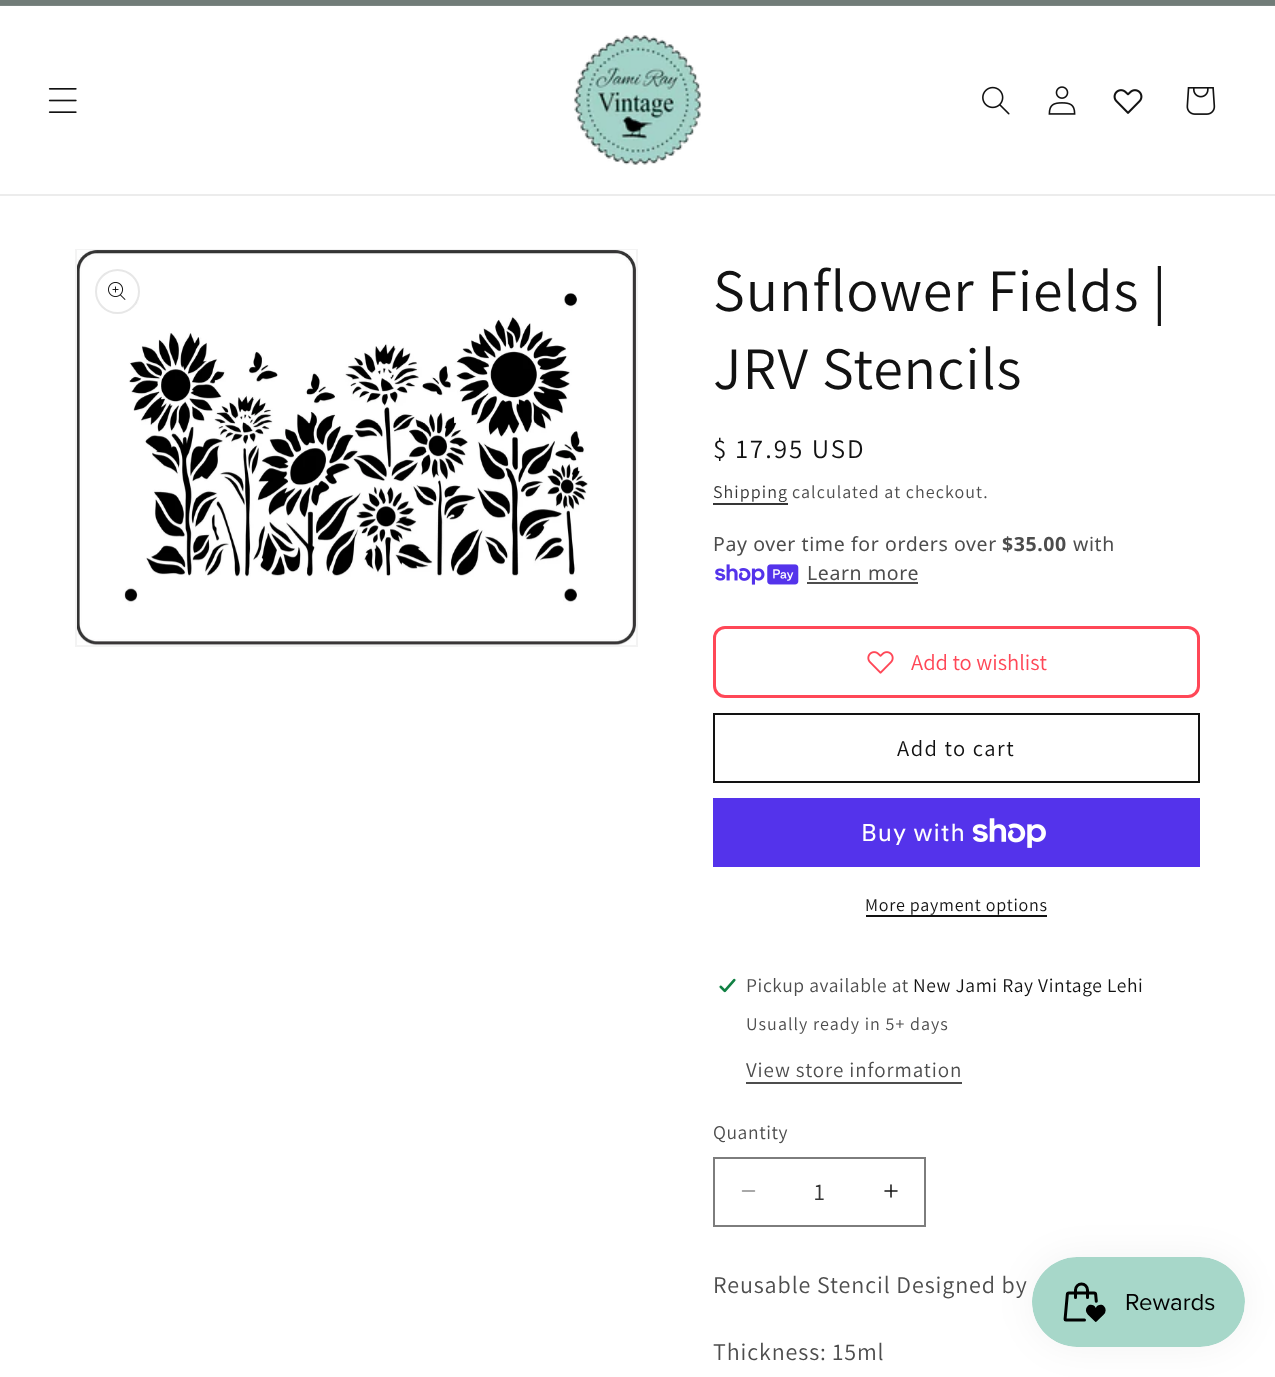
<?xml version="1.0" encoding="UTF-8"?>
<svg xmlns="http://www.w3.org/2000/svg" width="1275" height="1377">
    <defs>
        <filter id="blur1" x="-50%" y="-200%" width="200%" height="500%"><feGaussianBlur stdDeviation="19"/></filter>
    </defs>
    <rect width="100%" height="100%" fill="#FFFFFF"/>
    <rect x="0" y="0" width="1275" height="5" fill="#717C78"/>
    <rect x="0" y="5" width="1275" height="1" fill="#7C8683"/>
    <rect x="0" y="194" width="1275" height="2" fill="#ECECEC"/>
    <image x="48" y="88" width="29" height="25" href="img_01.png"/>
    <image x="574" y="35" width="128" height="130" href="img_02.png"/>
    <image x="982" y="86" width="28" height="29" href="img_03.png"/>
    <image x="1048" y="86" width="28" height="29" href="img_04.png"/>
    <image x="1113" y="89" width="30" height="25" href="img_05.png"/>
    <image x="1186" y="87" width="30" height="28" href="img_06.png"/>
    <rect x="76" y="250" width="561" height="396" fill="none" stroke="#F3F3F3" stroke-width="2"/>
    <image x="77" y="250" width="559" height="395" href="img_07.png"/>
    <circle cx="117.5" cy="291.5" r="22.5" fill="#FFFFFF"/>
    <circle cx="117.5" cy="291.5" r="21.5" fill="none" stroke="#121212" stroke-opacity="0.1" stroke-width="2"/>
    <image x="108" y="282" width="18" height="18" href="img_08.png"/>
    <text font-family="Assistant" font-size="60" letter-spacing="0.9" fill="#121212">
        <tspan x="713" y="311">Sunflower Fields |</tspan>
        <tspan x="713" y="389">JRV Stencils</tspan>
    </text>
    <text x="713" y="458" font-family="Assistant" font-size="27" letter-spacing="2" fill="#121212">$ 17.95 USD</text>
    <text x="713" y="498" font-family="Assistant" font-size="18" letter-spacing="1.05" fill="#363636">Shipping</text>
    <rect x="713" y="503" width="75" height="2" fill="#363636"/>
    <text x="792" y="498" font-family="Assistant" font-size="18" letter-spacing="1.05" fill="#4D4D4D">calculated at checkout.</text>
    <text x="713" y="551" font-family="Noto Sans" font-size="19.5" letter-spacing="0.6" fill="#4D4D4D">Pay over time for orders over</text>
    <text x="1002" y="551" font-family="Noto Sans" font-size="19.5" font-weight="700" letter-spacing="0.6" fill="#4D4D4D">$35.00</text>
    <text x="1073" y="551" font-family="Noto Sans" font-size="19.5" letter-spacing="0.6" fill="#4D4D4D">with</text>
    <image x="715" y="564" width="84" height="21" href="img_09.png"/>
    <text x="807" y="580" font-family="Noto Sans" font-size="19.5" letter-spacing="0.6" fill="#4D4D4D">Learn more</text>
    <rect x="807" y="582" width="111" height="2" fill="#4D4D4D"/>
    <rect x="714.5" y="627.5" width="484" height="69" rx="10.5" fill="none" stroke="#FF4757" stroke-width="3"/>
    <image x="867" y="651" width="27" height="23" href="img_10.png"/>
    <text x="911" y="670" font-family="Assistant" font-size="22.5" fill="#FF4757">Add to wishlist</text>
    <rect x="714" y="714" width="485" height="68" fill="none" stroke="#121212" stroke-width="2"/>
    <text x="897" y="756" font-family="Assistant" font-size="22.5" letter-spacing="1.5" fill="#121212">Add to cart</text>
    <rect x="713" y="798" width="487" height="69" fill="#5433EB"/>
    <text x="861" y="841" font-family="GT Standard" font-size="24" letter-spacing="0.9" fill="#FFFFFF">Buy with</text>
    <image x="972" y="818" width="74" height="30" href="img_11.png"/>
    <text x="865" y="911" font-family="Assistant" font-size="18" letter-spacing="0.75" fill="#121212">More payment options</text>
    <rect x="866" y="915" width="181" height="2" fill="#121212"/>
    <image x="718" y="978" width="19" height="15" href="img_12.png"/>
    <text x="746" y="992" font-family="Assistant" font-size="19.5" letter-spacing="0.6" fill="#4D4D4D">Pickup available at</text>
    <text x="913" y="992" font-family="Assistant" font-size="19.5" letter-spacing="0.6" fill="#121212">New Jami Ray Vintage Lehi</text>
    <text x="746" y="1030" font-family="Assistant" font-size="18" letter-spacing="1.05" fill="#4D4D4D">Usually ready in 5+ days</text>
    <text x="746" y="1077" font-family="Assistant" font-size="21" letter-spacing="0.9" fill="#4D4D4D">View store information</text>
    <rect x="746" y="1082" width="216" height="2" fill="#4D4D4D"/>
    <text x="713" y="1139" font-family="Assistant" font-size="19.5" letter-spacing="0.6" fill="#4D4D4D">Quantity</text>
    <image x="741" y="1190" width="15" height="2" href="img_13.png"/>
    <image x="884" y="1184" width="14" height="14" href="img_14.png"/>
    <rect x="714" y="1158" width="211" height="68" fill="none" stroke="#7D7D7D" stroke-width="2"/>
    <text x="814" y="1200" font-family="Assistant" font-size="24" fill="#363636">1</text>
    <text x="713" y="1293" font-family="Assistant" font-size="24" letter-spacing="0.9" fill="#4D4D4D">Reusable Stencil Designed by</text>
    <text x="713" y="1360" font-family="Assistant" font-size="24" letter-spacing="0.9" fill="#4D4D4D">Thickness: 15ml</text>
    <rect x="1032" y="1257" width="213" height="90" rx="45" fill="#000000" fill-opacity="0.05" filter="url(#blur1)"/>
    <image x="1032" y="1257" width="213" height="90" href="img_15.png"/>
</svg>
